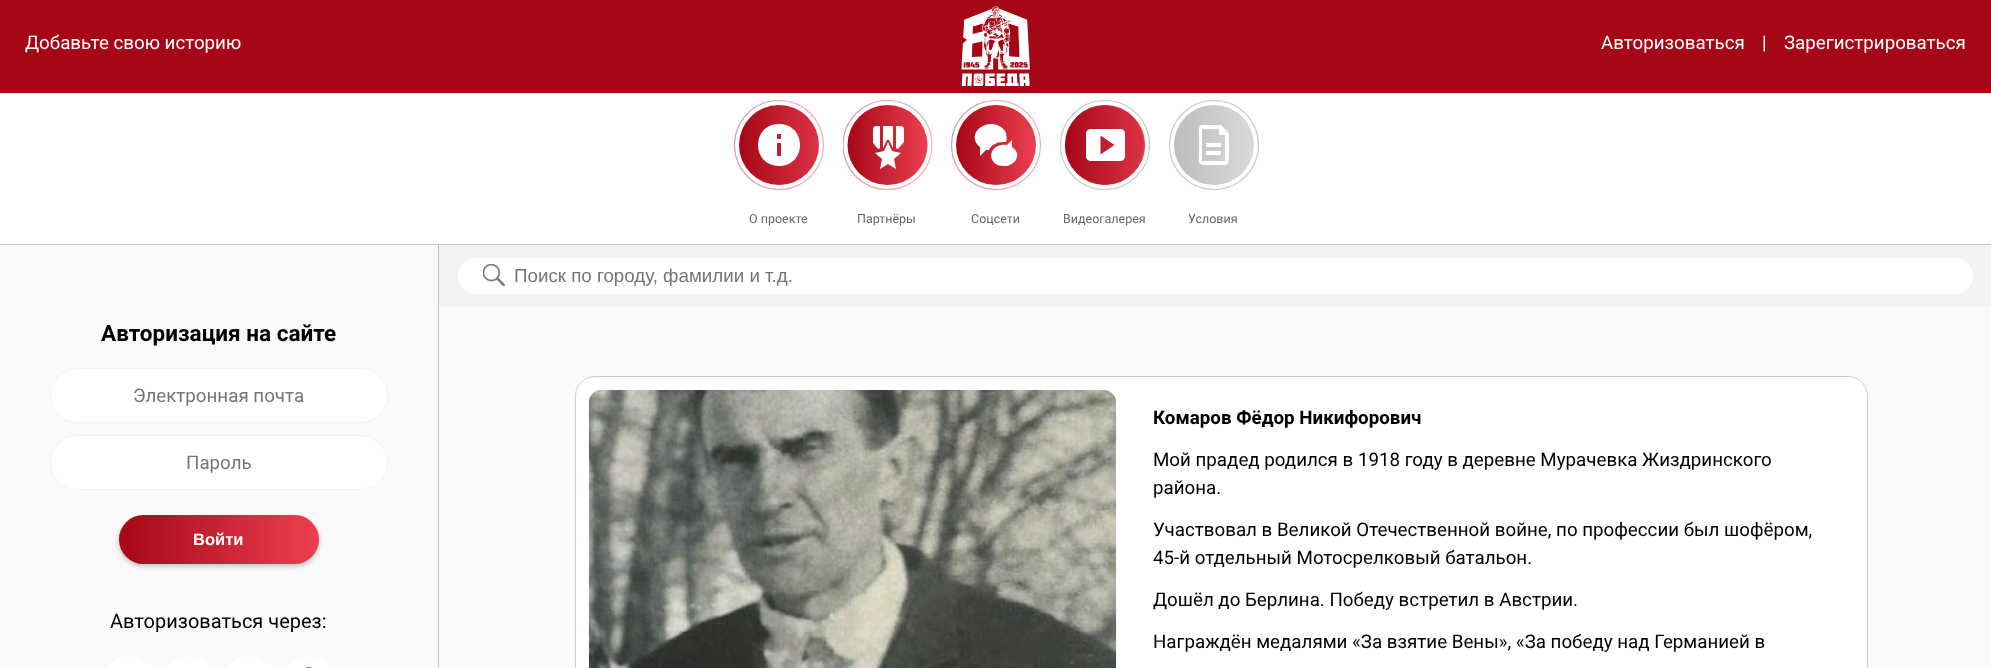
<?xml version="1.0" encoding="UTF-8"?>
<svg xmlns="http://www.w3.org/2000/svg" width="1991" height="668">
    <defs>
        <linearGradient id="g1" gradientUnits="userSpaceOnUse" x1="739" y1="145" x2="842" y2="145"><stop offset="0" stop-color="#A50716"/><stop offset="1" stop-color="#ED4051"/></linearGradient>
        <clipPath id="clip1"><rect x="734" y="100" width="90" height="90"/></clipPath>
        <linearGradient id="g2" gradientUnits="userSpaceOnUse" x1="734" y1="145" x2="824" y2="145"><stop offset="0" stop-color="#DB9CA2"/><stop offset="1" stop-color="#F8B3B9"/></linearGradient>
        <clipPath id="clip2"><rect x="843" y="100" width="90" height="90"/></clipPath>
        <linearGradient id="g3" gradientUnits="userSpaceOnUse" x1="843" y1="145" x2="933" y2="145"><stop offset="0" stop-color="#DB9CA2"/><stop offset="1" stop-color="#F8B3B9"/></linearGradient>
        <linearGradient id="g4" gradientUnits="userSpaceOnUse" x1="848" y1="145" x2="928" y2="145"><stop offset="0" stop-color="#A50716"/><stop offset="1" stop-color="#ED4051"/></linearGradient>
        <clipPath id="clip3"><rect x="951" y="100" width="90" height="90"/></clipPath>
        <linearGradient id="g5" gradientUnits="userSpaceOnUse" x1="951" y1="145" x2="1041" y2="145"><stop offset="0" stop-color="#DB9CA2"/><stop offset="1" stop-color="#F8B3B9"/></linearGradient>
        <linearGradient id="g6" gradientUnits="userSpaceOnUse" x1="956" y1="145" x2="1036" y2="145"><stop offset="0" stop-color="#A50716"/><stop offset="1" stop-color="#ED4051"/></linearGradient>
        <clipPath id="clip4"><rect x="1060" y="100" width="90" height="90"/></clipPath>
        <linearGradient id="g7" gradientUnits="userSpaceOnUse" x1="1065" y1="145" x2="1168" y2="145"><stop offset="0" stop-color="#A50716"/><stop offset="1" stop-color="#ED4051"/></linearGradient>
        <linearGradient id="g8" gradientUnits="userSpaceOnUse" x1="1065" y1="145" x2="1145" y2="145"><stop offset="0" stop-color="#A50716"/><stop offset="1" stop-color="#ED4051"/></linearGradient>
        <clipPath id="clip5"><rect x="1169" y="100" width="90" height="90"/></clipPath>
        <linearGradient id="g9" gradientUnits="userSpaceOnUse" x1="1174" y1="145" x2="1277" y2="145"><stop offset="0" stop-color="#BDBDBD"/><stop offset="1" stop-color="#E2E2E2"/></linearGradient>
        <filter id="blur1" x="-50%" y="-200%" width="200%" height="500%"><feGaussianBlur stdDeviation="2.5"/></filter>
        <linearGradient id="g10" gradientUnits="userSpaceOnUse" x1="119" y1="539" x2="319" y2="539"><stop offset="0" stop-color="#A50716"/><stop offset="1" stop-color="#ED4051"/></linearGradient>
    </defs>
    <rect width="100%" height="100%" fill="#FAFAFA"/>
    <rect x="0" y="0" width="1991" height="93" fill="#A50716"/>
    <text x="25" y="49" font-family="Roboto" font-size="18.75" fill="#FFFFFF">Добавьте свою историю</text>
    <image x="961" y="6" width="69" height="80" href="img_01.png"/>
    <text x="1601" y="49" font-family="Roboto" font-size="18.75" fill="#FFFFFF">Авторизоваться</text>
    <text x="1762" y="49" font-family="Roboto" font-size="18.75" fill="#FFFFFF">|</text>
    <text x="1784" y="49" font-family="Roboto" font-size="18.75" fill="#FFFFFF">Зарегистрироваться</text>
    <rect x="0" y="93" width="1991" height="151" fill="#FFFFFF"/>
    <rect x="0" y="244" width="1991" height="1" fill="#C4C4C4"/>
    <circle cx="779" cy="145" r="40" fill="url(#g1)"/>
    <path d="M 779 124 C 751 124 751 166 779 166 C 807 166 807 124 779 124 Z M 781 156 H 777 V 143 H 781 Z M 781 139 H 777 V 134 H 781 Z" fill="#FFFFFF"/>
    <g clip-path="url(#clip1)">
        <circle cx="779" cy="145" r="44.5" fill="none" stroke="url(#g2)" stroke-width="1.2"/>
    </g>
    <text x="749" y="223" font-family="Roboto" font-size="12.5" fill="#666666">О проекте</text>
    <g clip-path="url(#clip2)">
        <circle cx="887.5" cy="145" r="44.5" fill="none" stroke="url(#g3)" stroke-width="1.2"/>
    </g>
    <circle cx="887.5" cy="145" r="40" fill="url(#g4)"/>
    <path d="M 904 142 L 898 149 L 896 148 V 126 C 902 126 904 125 904 131 Z M 887 140 L 883 148 V 126 H 893 V 148 L 889 140 Z M 873 143 V 142 V 131 C 873 125 875 126 880 126 V 148 L 878 149 Z M 884 151 L 888 142 L 892 151 L 901 153 L 894 159 L 896 169 L 888 164 L 880 169 L 882 159 L 875 153 Z" fill="#FFFFFF"/>
    <text x="857" y="223" font-family="Roboto" font-size="12.5" fill="#666666">Партнёры</text>
    <g clip-path="url(#clip3)">
        <circle cx="996" cy="145" r="44.5" fill="none" stroke="url(#g5)" stroke-width="1.2"/>
    </g>
    <circle cx="996" cy="145" r="40" fill="url(#g6)"/>
    <path d="M 1004 166 C 985 166 988 142 1007 145 L 1012 140 V 147 C 1023 154 1015 166 1004 166 Z M 1003 142 C 997 142 991 145 989 150 H 986 L 980 156 V 147 C 966 136 982 120 997 125 C 1000 126 1003 128 1005 131 C 1007 135 1007 139 1006 142 Z" fill="#FFFFFF"/>
    <text x="971" y="223" font-family="Roboto" font-size="12.5" fill="#666666">Соцсети</text>
    <g clip-path="url(#clip4)">
        <circle cx="1105" cy="145" r="44.5" fill="none" stroke="#CCCCCC" stroke-width="1.2"/>
    </g>
    <circle cx="1105" cy="145" r="39.5" fill="url(#g7)" stroke="url(#g8)" stroke-width="1.2"/>
    <path d="M 1125 156.5 V 133.5 C 1125 131 1123 129 1120.5 129 H 1091 C 1088.5 129 1086 131 1086 133.5 V 156.5 C 1086 159 1088.5 161 1091 161 H 1120.5 C 1123 161 1125 159 1125 156.5 Z M 1100.5 154.5 V 135.5 L 1114.5 145 Z" fill="#FFFFFF"/>
    <text x="1063" y="223" font-family="Roboto" font-size="12.5" fill="#666666">Видеогалерея</text>
    <g clip-path="url(#clip5)">
        <circle cx="1214" cy="145" r="44.5" fill="none" stroke="#CCCCCC" stroke-width="1.2"/>
    </g>
    <circle cx="1214" cy="145" r="40" fill="url(#g9)"/>
    <path d="M 1219 129 H 1202 V 161 H 1225 V 135 H 1219 Z M 1202 125 H 1221 L 1229 133 C 1229 138 1230 161 1228 163 C 1227 166 1224 165 1221 165 H 1214 C 1197 165 1199 167 1199 150 V 134 C 1199 132 1198 125 1202 125 Z M 1206 143 H 1221 V 147 H 1206 Z M 1206 151 H 1221 V 155 H 1206 Z" fill="#FFFFFF"/>
    <text x="1188" y="223" font-family="Roboto" font-size="12.5" fill="#666666">Условия</text>
    <rect x="438" y="245" width="1" height="423" fill="#C4C4C4"/>
    <text x="101" y="341" font-family="Roboto" font-size="22.5" font-weight="700" fill="#000000">Авторизация на сайте</text>
    <rect x="50.5" y="368.5" width="337" height="54" rx="27" fill="#FFFFFF" stroke="#F3F3F3"/>
    <text x="133" y="402" font-family="Roboto" font-size="18.75" fill="#757575">Электронная почта</text>
    <rect x="50.5" y="435.5" width="337" height="54" rx="27" fill="#FFFFFF" stroke="#F3F3F3"/>
    <text x="186" y="469" font-family="Roboto" font-size="18.75" fill="#757575">Пароль</text>
    <rect x="119" y="518" width="200" height="48" rx="24" fill="#000000" fill-opacity="0.25" filter="url(#blur1)"/>
    <rect x="119" y="515" width="200" height="49" rx="24.5" fill="url(#g10)"/>
    <text x="193" y="545" font-family="Liberation Sans" font-size="16.5" font-weight="700" fill="#FFFFFF">Войти</text>
    <text x="110" y="628" font-family="Roboto" font-size="20" fill="#000000">Авторизоваться через:</text>
    <image x="108" y="656" width="42" height="12" href="img_02.png"/>
    <image x="168" y="656" width="42" height="12" href="img_02.png"/>
    <image x="228" y="656" width="42" height="12" href="img_02.png"/>
    <image x="288" y="656" width="42" height="12" href="img_03.png"/>
    <rect x="439" y="245" width="1552" height="61" fill="#F3F3F3"/>
    <rect x="458" y="258" width="1515" height="36" rx="18" fill="#FFFFFF"/>
    <image x="483" y="264" width="22" height="22" href="img_04.png"/>
    <text x="514" y="282" font-family="Liberation Sans" font-size="18.75" fill="#757575">Поиск по городу, фамилии и т.д.</text>
    <rect x="575.5" y="376.5" width="1292" height="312" rx="19.5" fill="#FFFFFF" stroke="#D8CBBF"/>
    <image x="588" y="390" width="529" height="278" href="img_05.png"/>
    <text x="1153" y="424" font-family="Roboto" font-size="18.75" font-weight="700" fill="#000000">Комаров Фёдор Никифорович</text>
    <text font-family="Roboto" font-size="18.75" fill="#000000">
        <tspan x="1153" y="466">Мой прадед родился в 1918 году в деревне Мурачевка Жиздринского</tspan>
        <tspan x="1153" y="494">района.</tspan>
    </text>
    <text font-family="Roboto" font-size="18.75" fill="#000000">
        <tspan x="1153" y="536">Участвовал в Великой Отечественной войне, по профессии был шофёром,</tspan>
        <tspan x="1153" y="564">45-й отдельный Мотосрелковый батальон.</tspan>
    </text>
    <text x="1153" y="606" font-family="Roboto" font-size="18.75" fill="#000000">Дошёл до Берлина. Победу встретил в Австрии.</text>
    <text x="1153" y="648" font-family="Roboto" font-size="18.75" fill="#000000">Награждён медалями «За взятие Вены», «За победу над Германией в</text>
</svg>
